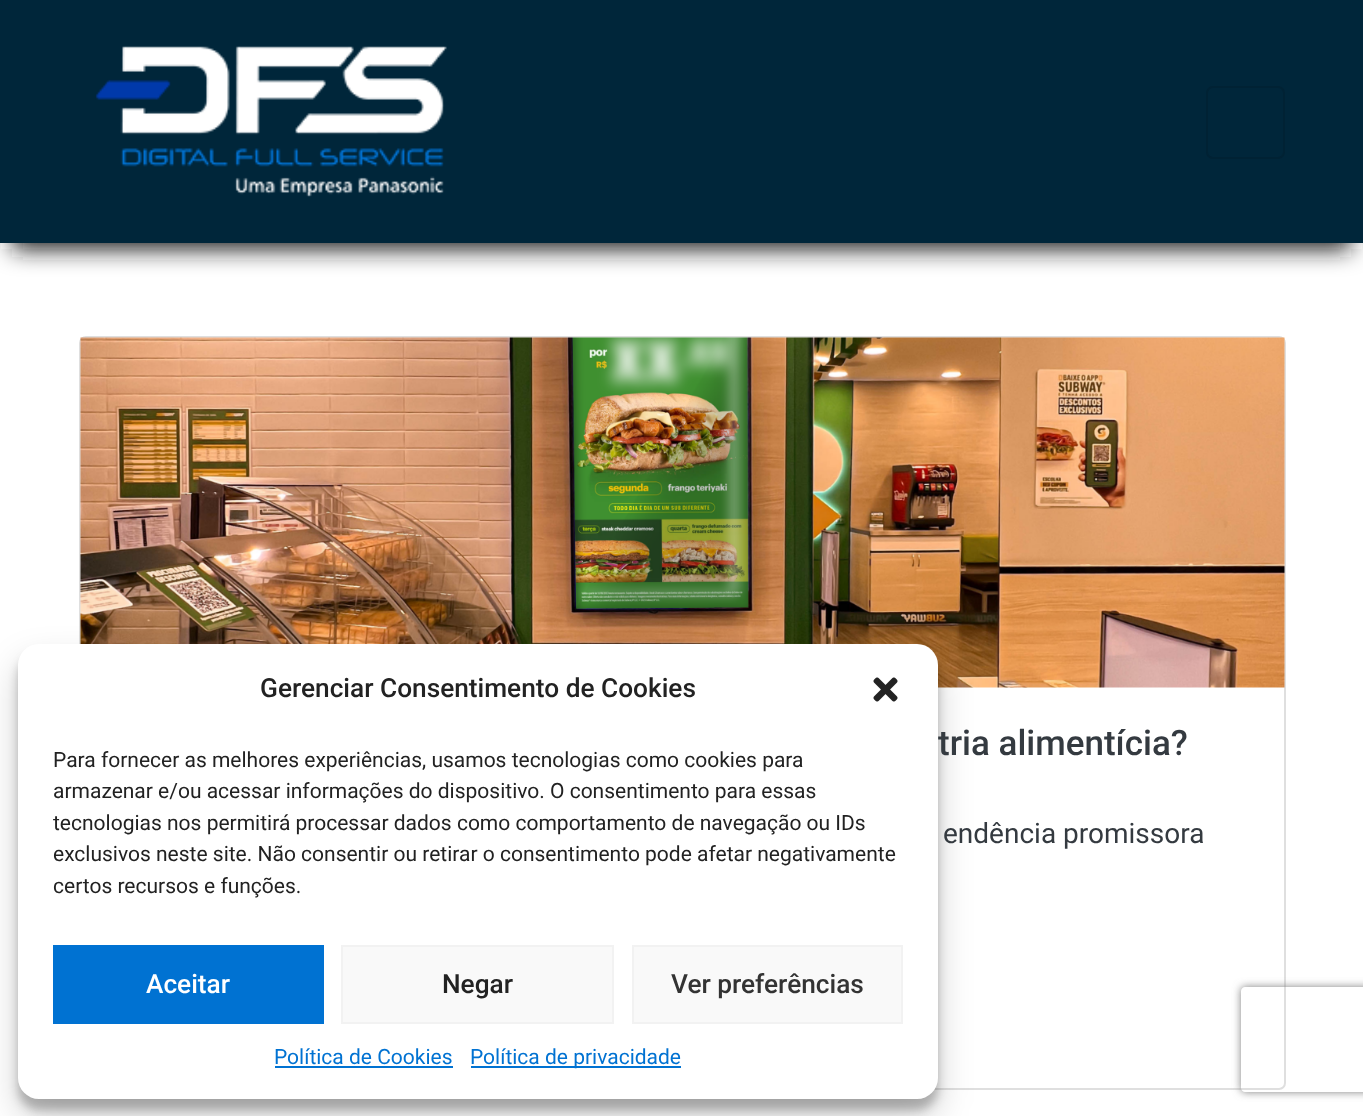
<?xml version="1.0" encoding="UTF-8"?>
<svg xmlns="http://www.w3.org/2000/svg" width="1363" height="1116">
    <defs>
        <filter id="blur1" x="-50%" y="-200%" width="200%" height="500%"><feGaussianBlur stdDeviation="11.5"/></filter>
        <filter id="blur2" x="-50%" y="-200%" width="200%" height="500%"><feGaussianBlur stdDeviation="5"/></filter>
        <filter id="blur3" x="-50%" y="-200%" width="200%" height="500%"><feGaussianBlur stdDeviation="17.5"/></filter>
        <clipPath id="clip1"><path d="M 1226 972 H 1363 V 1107 H 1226 Z M 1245 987 H 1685 C 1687 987 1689 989 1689 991 V 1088 C 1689 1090 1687 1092 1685 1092 H 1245 C 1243 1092 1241 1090 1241 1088 V 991 C 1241 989 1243 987 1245 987 Z" clip-rule="evenodd"/></clipPath>
        <filter id="blur4" x="-50%" y="-200%" width="200%" height="500%"><feGaussianBlur stdDeviation="4.5"/></filter>
    </defs>
    <rect width="100%" height="100%" fill="#FFFFFF"/>
    <rect x="12" y="30" width="1339" height="219" fill="#1F1F1F" filter="url(#blur1)"/>
    <rect x="0" y="0" width="1363" height="243" fill="#00263A"/>
    <image x="95" y="46" width="352" height="151" href="img_01.png"/>
    <rect x="1207" y="87" width="77" height="71" rx="6" fill="none" stroke="#002234" stroke-width="2"/>
    <rect x="80" y="337" width="1205" height="752" rx="6" fill="none" stroke="#DFDFDF" stroke-width="2"/>
    <image x="80" y="337" width="1205" height="351" href="img_03.png"/>
    <rect x="18" y="655" width="920" height="455" rx="21" fill="#000000" fill-opacity="0.23" filter="url(#blur2)"/>
    <rect x="18" y="662" width="920" height="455" rx="21" fill="#000000" fill-opacity="0.19" filter="url(#blur3)"/>
    <text x="938" y="755" font-family="Roboto" font-size="35" font-weight="500" fill="#343A40">tria alimentícia?</text>
    <rect x="18" y="644" width="920" height="455" rx="21" fill="#FFFFFF"/>
    <text x="260" y="697" font-family="Roboto" font-size="26.25" font-weight="500" fill="#222222">Gerenciar Consentimento de Cookies</text>
    <image x="873" y="677" width="25" height="25" href="img_02.png"/>
    <text font-family="Roboto" font-size="21" fill="#222222">
        <tspan x="53" y="767">Para fornecer as melhores experiências, usamos tecnologias como cookies para</tspan>
        <tspan x="53" y="798">armazenar e/ou acessar informações do dispositivo. O consentimento para essas</tspan>
        <tspan x="53" y="830">tecnologias nos permitirá processar dados como comportamento de navegação ou IDs</tspan>
        <tspan x="53" y="861">exclusivos neste site. Não consentir ou retirar o consentimento pode afetar negativamente</tspan>
        <tspan x="53" y="893">certos recursos e funções.</tspan>
    </text>
    <rect x="53" y="945" width="271" height="79" fill="#0072D2"/>
    <text x="146" y="993" font-family="Roboto" font-size="26.25" font-weight="500" fill="#FFFFFF">Aceitar</text>
    <rect x="342" y="946" width="271" height="77" fill="#F9F9F9" stroke="#F2F2F2" stroke-width="2"/>
    <text x="442" y="993" font-family="Roboto" font-size="26.25" font-weight="500" fill="#222222">Negar</text>
    <rect x="633" y="946" width="269" height="77" fill="#F9F9F9" stroke="#F2F2F2" stroke-width="2"/>
    <text x="671" y="993" font-family="Roboto" font-size="26.25" font-weight="500" fill="#333333">Ver preferências</text>
    <text x="274" y="1064" font-family="Roboto" font-size="21" fill="#0072D2">Política de Cookies</text>
    <rect x="275" y="1066" width="178" height="2" fill="#0072D2"/>
    <rect x="471" y="1066" width="210" height="2" fill="#0072D2"/>
    <text x="470" y="1064" font-family="Roboto" font-size="21" fill="#0072D2">Política de privacidade</text>
    <text x="943" y="843" font-family="Roboto" font-size="28" fill="#343A40">endência promissora</text>
    <g clip-path="url(#clip1)">
        <rect x="1241" y="987" width="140" height="105" rx="4" fill="#808080" filter="url(#blur4)"/>
    </g>
</svg>
